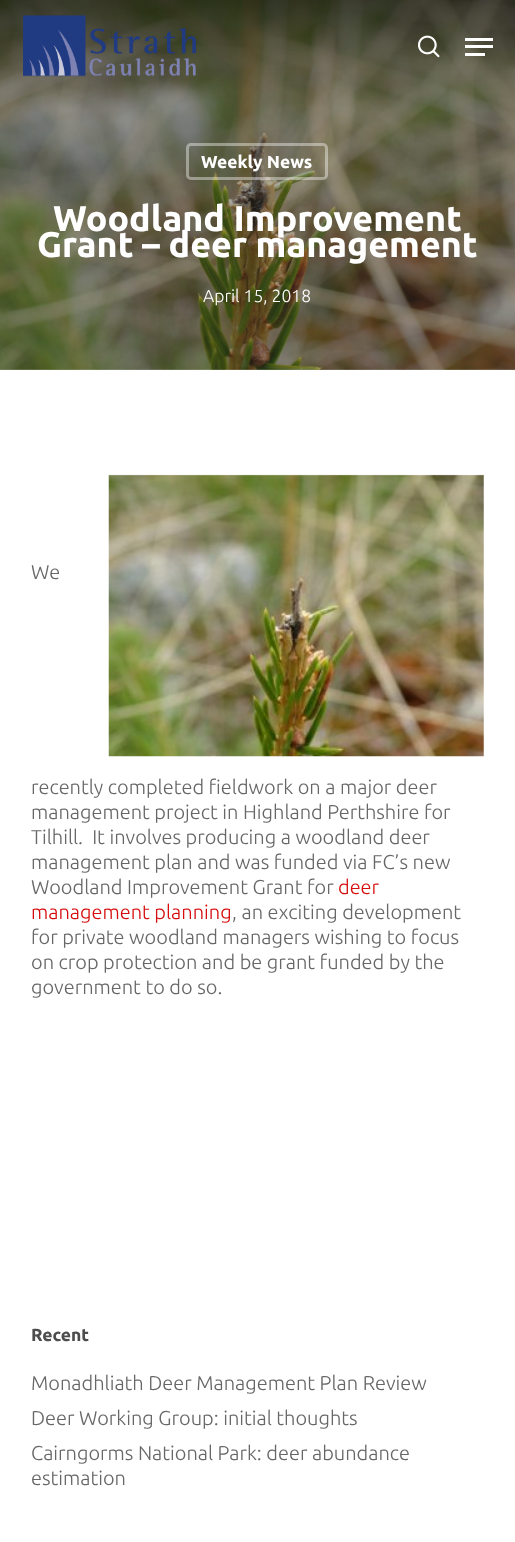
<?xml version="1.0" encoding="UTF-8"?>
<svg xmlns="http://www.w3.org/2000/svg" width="515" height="1542">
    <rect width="100%" height="100%" fill="#FFFFFF"/>
    <image x="0" y="0" width="515" height="370" href="img_03.png"/>
    <image x="23" y="15" width="174" height="62" href="img_01.png"/>
    <image x="418" y="35" width="22" height="23" href="img_02.png"/>
    <rect x="465" y="38" width="28" height="3" fill="#FFFFFF"/>
    <rect x="465" y="53" width="20" height="3" fill="#FFFFFF"/>
    <rect x="465" y="45" width="28" height="3" fill="#FFFFFF"/>
    <rect x="187.5" y="144.5" width="139" height="34" rx="3.5" fill="none" stroke="#FFFFFF" stroke-opacity="0.4" stroke-width="3"/>
    <text x="201" y="168" font-family="Ubuntu" font-size="17.5" font-weight="700" fill="#FFFFFF">Weekly News</text>
    <text x="53" y="231" font-family="Ubuntu" font-size="35.75" font-weight="700" fill="#FFFFFF">Woodland Improvement</text>
    <text x="37" y="257" font-family="Ubuntu" font-size="35.75" font-weight="700" fill="#FFFFFF">Grant – deer management</text>
    <text x="203" y="302" font-family="Ubuntu" font-size="17.5" font-weight="300" fill="#FFFFFF">April 15, 2018</text>
    <image x="108" y="474" width="376" height="283" href="img_04.png"/>
    <text x="31" y="579" font-family="Ubuntu" font-size="20" font-weight="300" fill="#676767">We</text>
    <text font-family="Ubuntu" font-size="20" font-weight="300" fill="#676767" xml:space="preserve"><tspan x="31" y="794">recently completed fieldwork on a major deer</tspan><tspan x="31" y="819">management project in Highland Perthshire for</tspan><tspan x="31" y="844">Tilhill.  It involves producing a woodland deer</tspan><tspan x="31" y="869">management plan and was funded via FC’s new</tspan><tspan x="31" y="894">Woodland Improvement Grant for</tspan></text>
    <text x="338" y="894" font-family="Ubuntu" font-size="20" font-weight="300" fill="#D60C0C">deer</text>
    <text x="31" y="919" font-family="Ubuntu" font-size="20" font-weight="300" fill="#D60C0C">management planning</text>
    <text x="232" y="919" font-family="Ubuntu" font-size="20" font-weight="300" fill="#676767">, an exciting development</text>
    <text font-family="Ubuntu" font-size="20" font-weight="300" fill="#676767">
        <tspan x="31" y="944">for private woodland managers wishing to focus</tspan>
        <tspan x="31" y="969">on crop protection and be grant funded by the</tspan>
        <tspan x="31" y="994">government to do so.</tspan>
    </text>
    <text x="31" y="1341" font-family="Ubuntu" font-size="17.5" font-weight="700" fill="#4D4D4D">Recent</text>
    <text font-family="Ubuntu" font-size="20" font-weight="300" fill="#676767">
        <tspan x="31" y="1390">Monadhliath Deer Management Plan Review</tspan>
        <tspan x="31" y="1425">Deer Working Group: initial thoughts</tspan>
        <tspan x="31" y="1460">Cairngorms National Park: deer abundance</tspan>
        <tspan x="31" y="1485">estimation</tspan>
    </text>
</svg>
